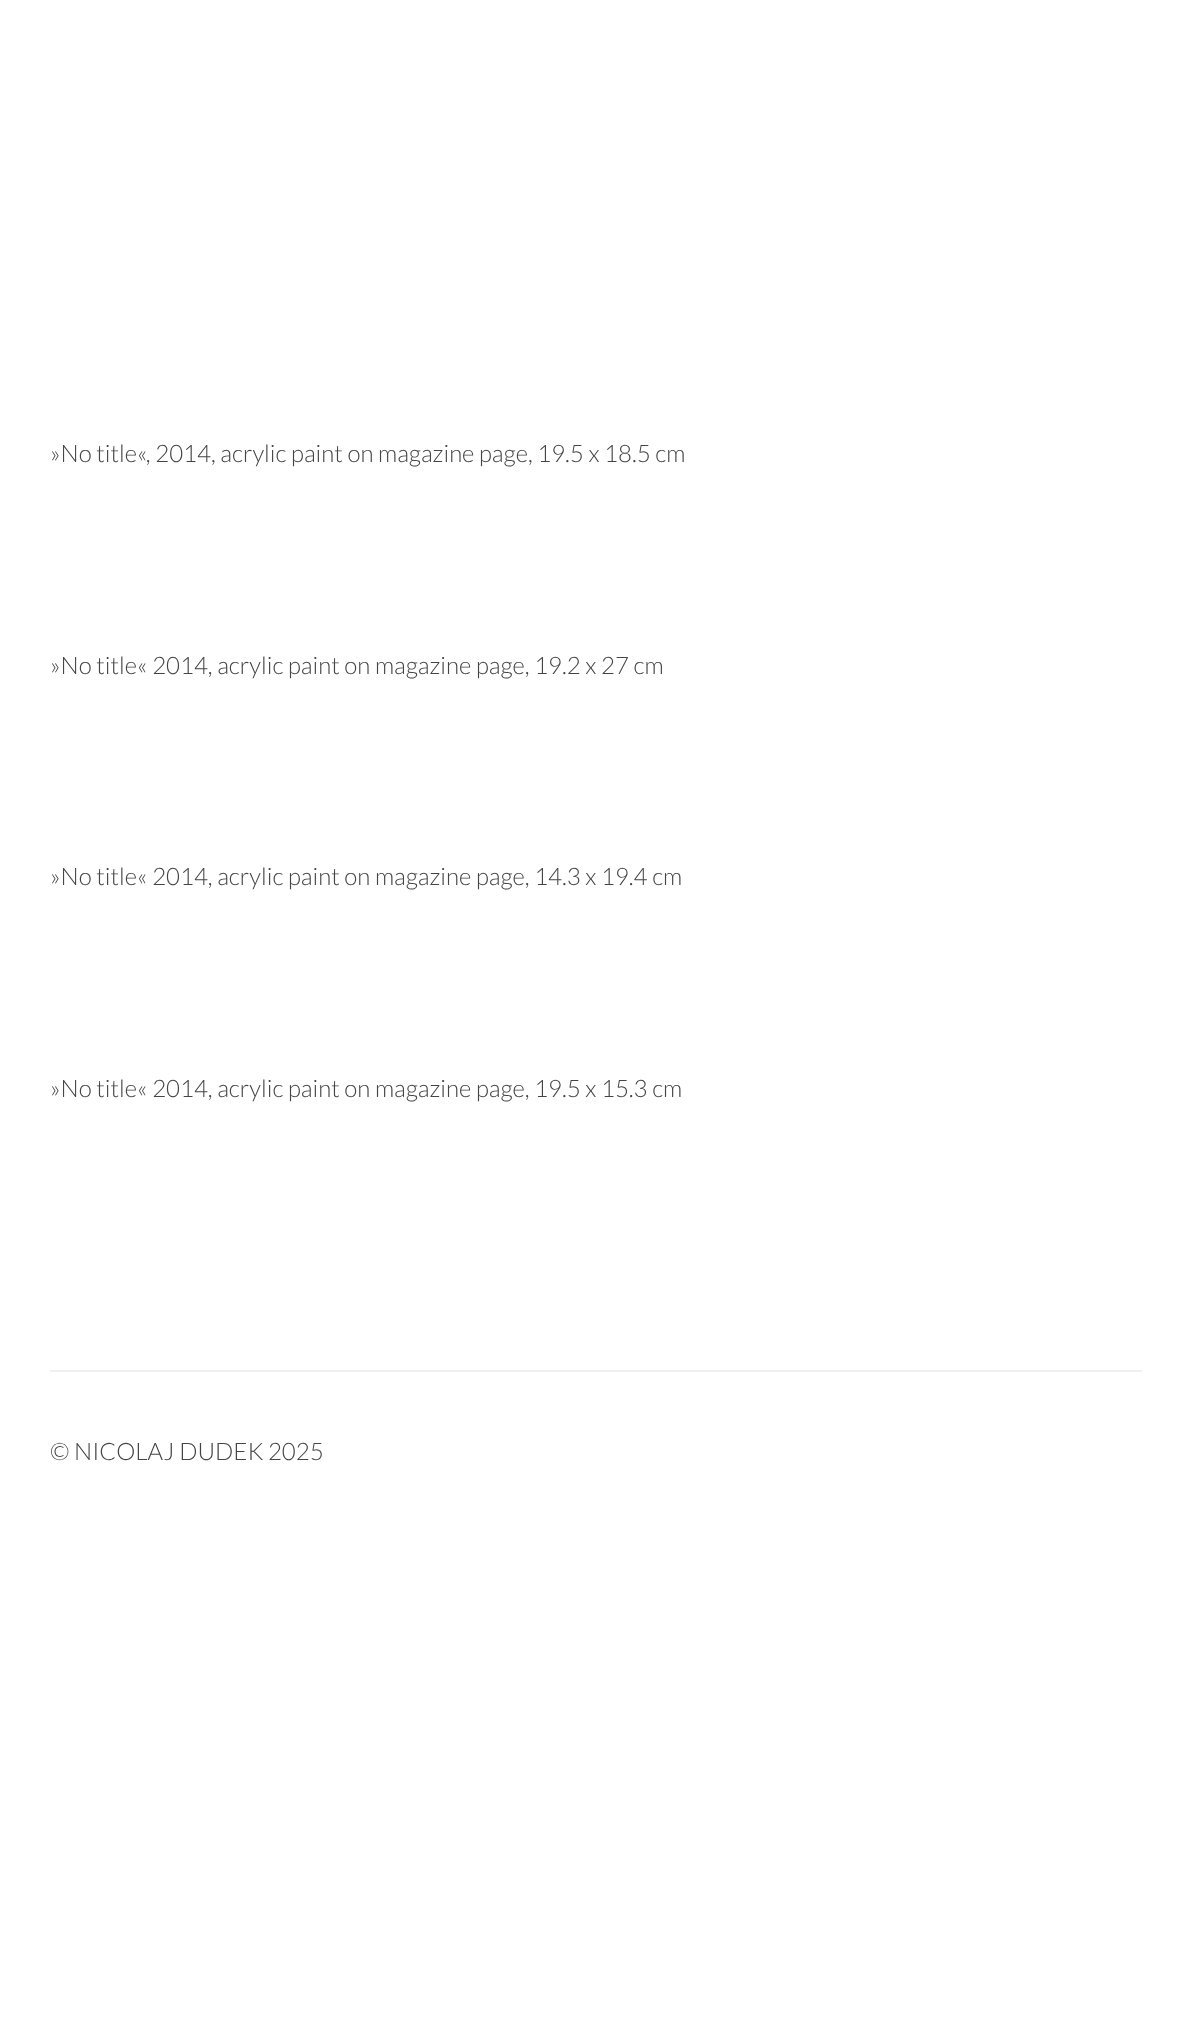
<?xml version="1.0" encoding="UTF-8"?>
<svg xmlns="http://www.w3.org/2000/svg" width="1192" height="2025">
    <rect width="100%" height="100%" fill="#FFFFFF"/>
    <text x="50" y="462" font-family="Lato" font-size="24" font-weight="300" fill="#444444">»No title«, 2014, acrylic paint on magazine page, 19.5 x 18.5 cm</text>
    <text x="50" y="674" font-family="Lato" font-size="24" font-weight="300" fill="#444444">»No title« 2014, acrylic paint on magazine page, 19.2 x 27 cm</text>
    <text x="50" y="885" font-family="Lato" font-size="24" font-weight="300" fill="#444444">»No title« 2014, acrylic paint on magazine page, 14.3 x 19.4 cm</text>
    <text x="50" y="1097" font-family="Lato" font-size="24" font-weight="300" fill="#444444">»No title« 2014, acrylic paint on magazine page, 19.5 x 15.3 cm</text>
    <rect x="50" y="1370" width="1092" height="2" fill="#F0F0F0"/>
    <text x="50" y="1460" font-family="Lato" font-size="24" font-weight="300" fill="#444444">© NICOLAJ DUDEK 2025</text>
</svg>
